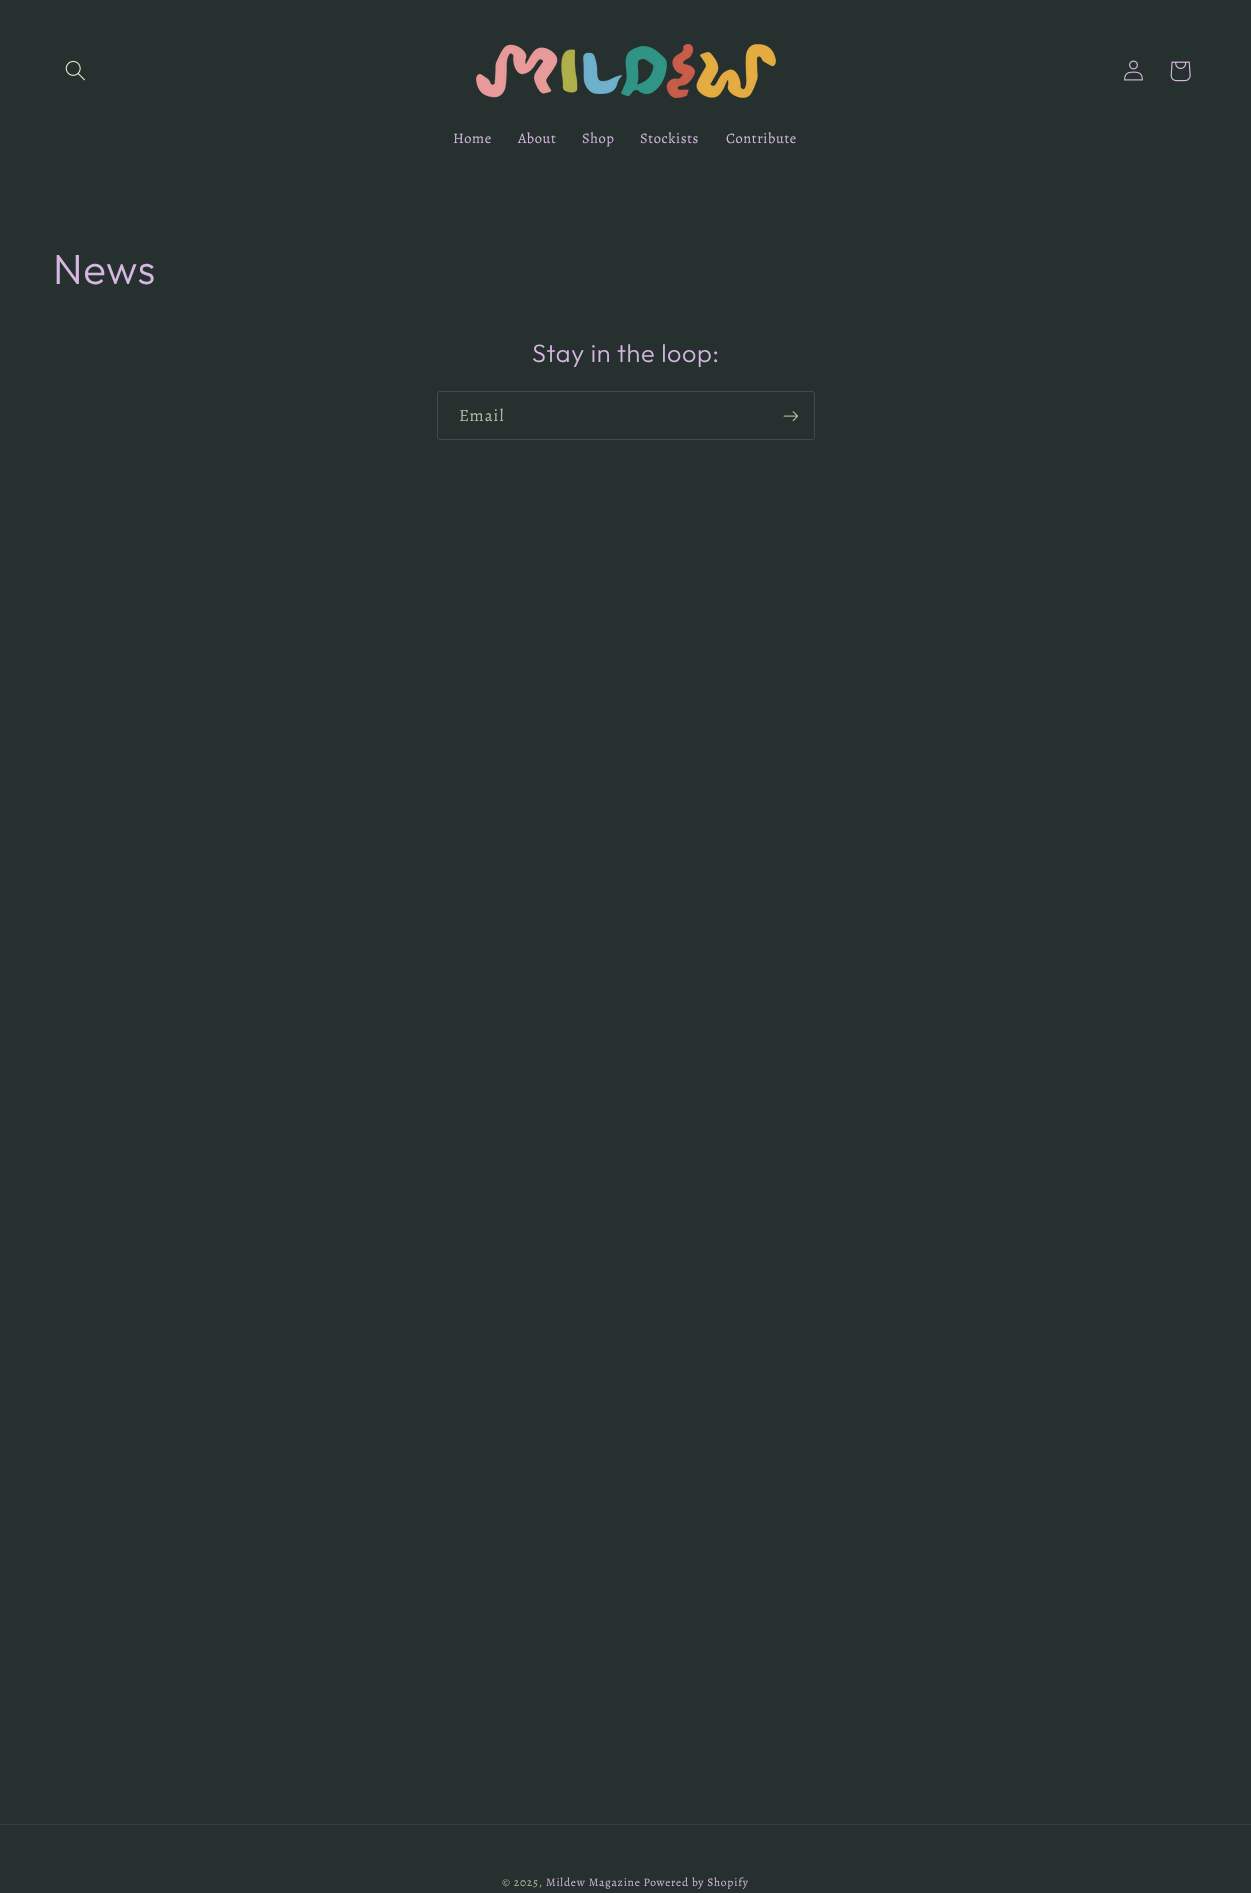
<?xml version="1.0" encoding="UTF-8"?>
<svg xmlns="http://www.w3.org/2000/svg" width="1251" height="1893">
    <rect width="100%" height="100%" fill="#26312F"/>
    <image x="65" y="60" width="20" height="21" href="img_01.png"/>
    <image x="476" y="44" width="300" height="54" href="img_02.png"/>
    <image x="1124" y="60" width="19" height="21" href="img_03.png"/>
    <image x="1170" y="61" width="21" height="21" href="img_04.png"/>
    <text x="453" y="143" font-family="Alegreya" font-size="14.5" letter-spacing="0.6" fill="#D7B7E1">Home</text>
    <text x="518" y="143" font-family="Alegreya" font-size="14.5" letter-spacing="0.6" fill="#D7B7E1">About</text>
    <text x="582" y="143" font-family="Alegreya" font-size="14.5" letter-spacing="0.6" fill="#D7B7E1">Shop</text>
    <text x="640" y="143" font-family="Alegreya" font-size="14.5" letter-spacing="0.6" fill="#D7B7E1">Stockists</text>
    <text x="726" y="143" font-family="Alegreya" font-size="14.5" letter-spacing="0.6" fill="#D7B7E1">Contribute</text>
    <text x="53" y="284" font-family="Outfit" font-size="42" font-weight="300" letter-spacing="0.6" fill="#D7B7E1">News</text>
    <text x="532" y="362" font-family="Outfit" font-size="25.25" font-weight="300" letter-spacing="0.6" fill="#D7B7E1">Stay in the loop:</text>
    <rect x="437.5" y="391.5" width="377" height="48" rx="2.5" fill="none" stroke="#E0ECC6" stroke-opacity="0.15"/>
    <text x="459" y="421" font-family="Alegreya" font-size="17" letter-spacing="1" fill="#B2BDA0">Email</text>
    <image x="783" y="411" width="15" height="11" href="img_05.png"/>
    <rect x="0" y="1824" width="1251" height="1" fill="#35403B"/>
    <text x="502" y="1886" font-family="Alegreya" font-size="11.5" letter-spacing="0.75" fill="#B2BDA0">© 2025,</text>
    <text x="546" y="1886" font-family="Alegreya" font-size="11.5" letter-spacing="0.75" fill="#D7B7E1">Mildew Magazine Powered by Shopify</text>
</svg>
